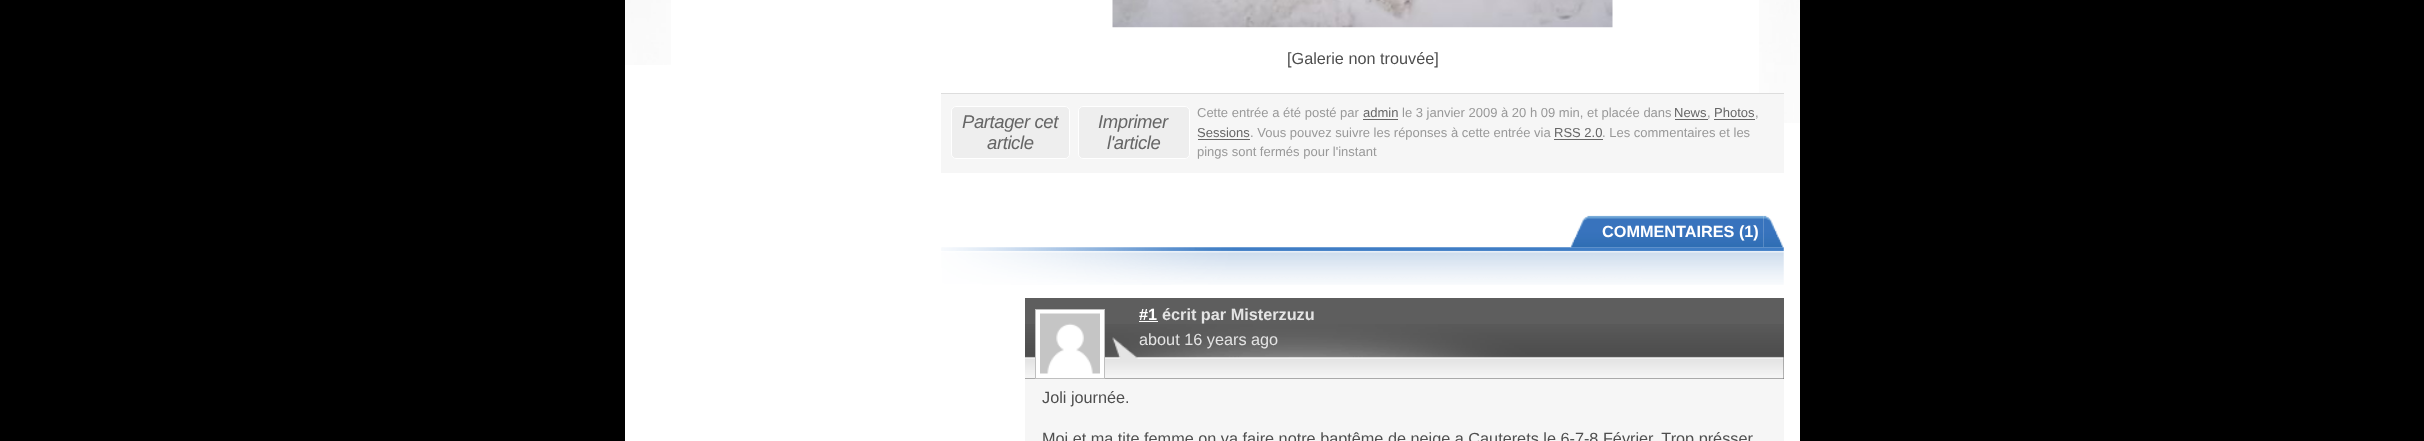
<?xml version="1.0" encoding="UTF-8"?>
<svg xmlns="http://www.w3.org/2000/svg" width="2424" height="441">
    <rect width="100%" height="100%" fill="#000000"/>
    <rect x="625" y="0" width="1175" height="441" fill="#FFFFFF"/>
    <image x="1759" y="0" width="41" height="123" href="img_01.png"/>
    <image x="625" y="0" width="46" height="65" href="img_02.png"/>
    <image x="1112" y="0" width="501" height="28" href="img_03.png"/>
    <text x="1287" y="64" font-family="Liberation Sans" font-size="16.25" fill="#4E4E4E">[Galerie non trouvée]</text>
    <rect x="941" y="94" width="843" height="79" fill="#F6F6F6"/>
    <rect x="941" y="93" width="843" height="1" fill="#DDDDDD"/>
    <rect x="951.5" y="106.5" width="118" height="52" rx="4.5" fill="#EEEEEE" stroke="#FFFFFF"/>
    <text x="962" y="128" font-family="Liberation Sans" font-size="18.5" font-style="italic" letter-spacing="-0.4" fill="#666666">Partager cet</text>
    <text x="987" y="149" font-family="Liberation Sans" font-size="18.5" font-style="italic" letter-spacing="-0.4" fill="#666666">article</text>
    <rect x="1078.5" y="106.5" width="111" height="52" rx="4.5" fill="#EEEEEE" stroke="#FFFFFF"/>
    <text x="1098" y="128" font-family="Liberation Sans" font-size="18.5" font-style="italic" letter-spacing="-0.4" fill="#666666">Imprimer</text>
    <text x="1107" y="149" font-family="Liberation Sans" font-size="18.5" font-style="italic" letter-spacing="-0.4" fill="#666666">l'article</text>
    <text x="1197" y="117" font-family="Liberation Sans" font-size="13" fill="#999999">Cette entrée a été posté par</text>
    <text x="1363" y="117" font-family="Liberation Sans" font-size="13" fill="#666666">admin</text>
    <rect x="1363" y="119" width="35" height="1" fill="#666666"/>
    <text x="1402" y="117" font-family="Liberation Sans" font-size="13" fill="#999999">le 3 janvier 2009 à 20 h 09 min, et placée dans</text>
    <text x="1674" y="117" font-family="Liberation Sans" font-size="13" fill="#666666">News</text>
    <rect x="1675" y="119" width="33" height="1" fill="#666666"/>
    <text x="1707" y="117" font-family="Liberation Sans" font-size="13" fill="#999999">,</text>
    <text x="1714" y="117" font-family="Liberation Sans" font-size="13" fill="#666666">Photos</text>
    <rect x="1714" y="119" width="41" height="1" fill="#666666"/>
    <text x="1755" y="117" font-family="Liberation Sans" font-size="13" fill="#999999">,</text>
    <text x="1197" y="137" font-family="Liberation Sans" font-size="13" fill="#666666">Sessions</text>
    <rect x="1198" y="139" width="52" height="1" fill="#666666"/>
    <text x="1250" y="137" font-family="Liberation Sans" font-size="13" fill="#999999">. Vous pouvez suivre les réponses à cette entrée via</text>
    <text x="1554" y="137" font-family="Liberation Sans" font-size="13" fill="#666666">RSS 2.0</text>
    <rect x="1554" y="139" width="49" height="1" fill="#666666"/>
    <text x="1602" y="137" font-family="Liberation Sans" font-size="13" fill="#999999">. Les commentaires et les</text>
    <text x="1197" y="156" font-family="Liberation Sans" font-size="13" fill="#999999">pings sont fermés pour l'instant</text>
    <image x="941" y="247" width="843" height="38" href="img_04.png"/>
    <image x="1763" y="215" width="21" height="33" href="img_05.png"/>
    <image x="1570" y="215" width="194" height="33" href="img_06.png"/>
    <text x="1602" y="237" font-family="Liberation Sans" font-size="16.25" font-weight="700" fill="#FFFFFF">COMMENTAIRES (1)</text>
    <rect x="1025" y="298" width="759" height="81" fill="#5E5E5E"/>
    <image x="1025" y="324" width="759" height="55" href="img_07.png"/>
    <rect x="1035.5" y="309.5" width="69" height="69" fill="#FFFFFF" stroke="#BFBFBF"/>
    <image x="1040" y="313" width="60" height="61" href="img_08.png"/>
    <text x="1139" y="320" font-family="Liberation Sans" font-size="16.25" font-weight="700" fill="#FFFFFF">#1</text>
    <rect x="1139" y="321" width="19" height="1" fill="#FFFFFF"/>
    <text x="1162" y="320" font-family="Liberation Sans" font-size="16.25" font-weight="700" fill="#E4E4E4">écrit par Misterzuzu</text>
    <text x="1139" y="345" font-family="Liberation Sans" font-size="16.25" fill="#E4E4E4">about 16 years ago</text>
    <rect x="1025" y="379" width="759" height="62" fill="#F6F6F6"/>
    <text x="1042" y="403" font-family="Liberation Sans" font-size="16.25" fill="#4E4E4E">Joli journée.</text>
    <text x="1042" y="444" font-family="Liberation Sans" font-size="16.25" fill="#4E4E4E">Moi et ma tite femme on va faire notre baptême de neige a Cauterets le 6-7-8 Février. Trop présser.</text>
</svg>
